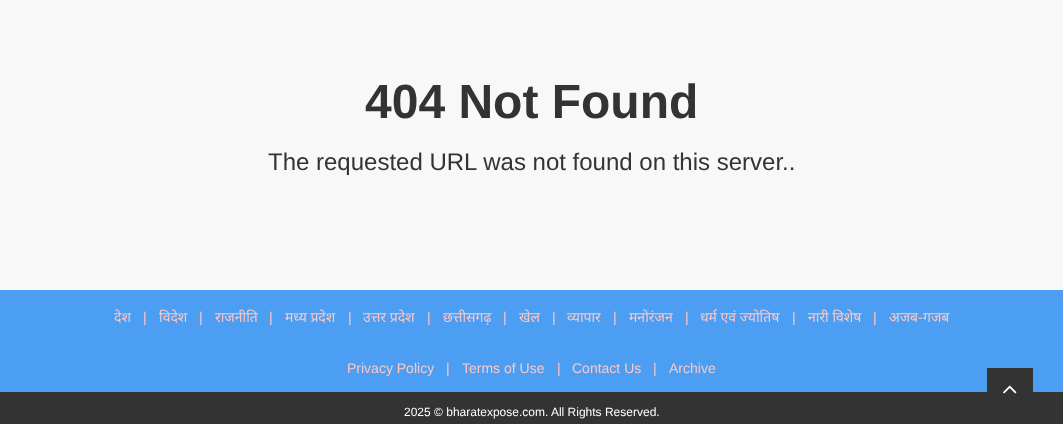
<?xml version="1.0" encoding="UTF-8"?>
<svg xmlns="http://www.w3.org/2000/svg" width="1063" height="424">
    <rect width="100%" height="100%" fill="#F8F8F8"/>
    <text x="365" y="118" font-family="Liberation Sans" font-size="48" font-weight="700" fill="#333333">404 Not Found</text>
    <text x="268" y="170" font-family="Liberation Sans" font-size="24" fill="#333333">The requested URL was not found on this server..</text>
    <rect x="0" y="290" width="1063" height="102" fill="#4B9EF2"/>
    <text x="114" y="322" font-family="Noto Sans" font-size="14" fill="#FCC7C7">देश</text>
    <text x="143" y="322" font-family="Liberation Sans" font-size="14" fill="#FCC7C7">|</text>
    <text x="159" y="322" font-family="Noto Sans" font-size="14" fill="#FCC7C7">विदेश</text>
    <text x="199" y="322" font-family="Liberation Sans" font-size="14" fill="#FCC7C7">|</text>
    <text x="215" y="322" font-family="Noto Sans" font-size="14" fill="#FCC7C7">राजनीति</text>
    <text x="269" y="322" font-family="Liberation Sans" font-size="14" fill="#FCC7C7">|</text>
    <text x="285" y="322" font-family="Noto Sans" font-size="14" fill="#FCC7C7">मध्य प्रदेश</text>
    <text x="348" y="322" font-family="Liberation Sans" font-size="14" fill="#FCC7C7">|</text>
    <text x="363" y="322" font-family="Noto Sans" font-size="14" fill="#FCC7C7">उत्तर प्रदेश</text>
    <text x="427" y="322" font-family="Liberation Sans" font-size="14" fill="#FCC7C7">|</text>
    <text x="443" y="322" font-family="Noto Sans" font-size="14" fill="#FCC7C7">छत्तीसगढ़</text>
    <text x="503" y="322" font-family="Liberation Sans" font-size="14" fill="#FCC7C7">|</text>
    <text x="519" y="322" font-family="Noto Sans" font-size="14" fill="#FCC7C7">खेल</text>
    <text x="552" y="322" font-family="Liberation Sans" font-size="14" fill="#FCC7C7">|</text>
    <text x="567" y="322" font-family="Noto Sans" font-size="14" fill="#FCC7C7">व्यापार</text>
    <text x="613" y="322" font-family="Liberation Sans" font-size="14" fill="#FCC7C7">|</text>
    <text x="629" y="322" font-family="Noto Sans" font-size="14" fill="#FCC7C7">मनोरंजन</text>
    <text x="685" y="322" font-family="Liberation Sans" font-size="14" fill="#FCC7C7">|</text>
    <text x="700" y="322" font-family="Noto Sans" font-size="14" fill="#FCC7C7">धर्म एवं ज्योतिष</text>
    <text x="792" y="322" font-family="Liberation Sans" font-size="14" fill="#FCC7C7">|</text>
    <text x="808" y="322" font-family="Noto Sans" font-size="14" fill="#FCC7C7">नारी विशेष</text>
    <text x="873" y="322" font-family="Liberation Sans" font-size="14" fill="#FCC7C7">|</text>
    <text x="889" y="322" font-family="Noto Sans" font-size="14" fill="#FCC7C7">अजब</text>
    <text x="918" y="322" font-family="Liberation Sans" font-size="14" fill="#FCC7C7">-</text>
    <text x="923" y="322" font-family="Noto Sans" font-size="14" fill="#FCC7C7">गजब</text>
    <text x="347" y="373" font-family="Liberation Sans" font-size="14" fill="#FCC7C7">Privacy Policy</text>
    <text x="446" y="373" font-family="Liberation Sans" font-size="14" fill="#FCC7C7">|</text>
    <text x="462" y="373" font-family="Liberation Sans" font-size="14" fill="#FCC7C7">Terms of Use</text>
    <text x="557" y="373" font-family="Liberation Sans" font-size="14" fill="#FCC7C7">|</text>
    <text x="572" y="373" font-family="Liberation Sans" font-size="14" fill="#FCC7C7">Contact Us</text>
    <text x="653" y="373" font-family="Liberation Sans" font-size="14" fill="#FCC7C7">|</text>
    <text x="669" y="373" font-family="Liberation Sans" font-size="14" fill="#FCC7C7">Archive</text>
    <rect x="0" y="392" width="1063" height="32" fill="#333333"/>
    <text x="404" y="416" font-family="Liberation Sans" font-size="12" fill="#FFFFFF">2025 © bharatexpose.com. All Rights Reserved.</text>
    <rect x="987" y="368" width="46" height="24" fill="#333333"/>
    <image x="1003" y="385" width="14" height="9" href="img_01.png"/>
</svg>
